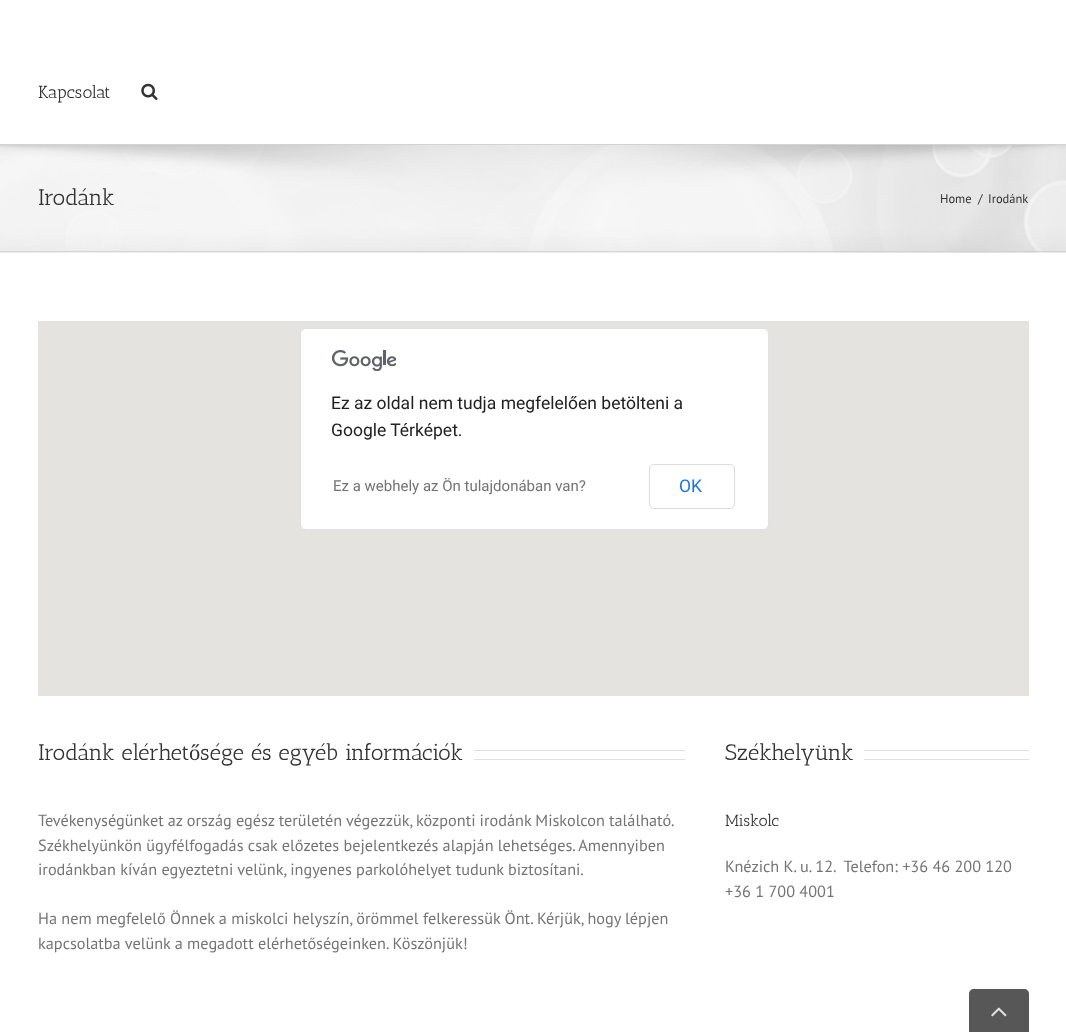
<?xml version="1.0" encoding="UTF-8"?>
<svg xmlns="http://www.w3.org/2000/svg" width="1066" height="1032">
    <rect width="100%" height="100%" fill="#FFFFFF"/>
    <text x="38" y="98" font-family="Antic Slab" font-size="17.5" fill="#333333">Kapcsolat</text>
    <image x="141" y="83" width="17" height="17" href="img_01.png"/>
    <rect x="0" y="145" width="1066" height="108" fill="#F6F6F6"/>
    <image x="0" y="145" width="1066" height="108" href="img_02.png"/>
    <rect x="0" y="144" width="1066" height="1" fill="#D2D3D4"/>
    <rect x="0" y="251" width="1066" height="1" fill="#D2D3D4"/>
    <text x="38" y="205" font-family="Antic Slab" font-size="22.5" fill="#333333">Irodánk</text>
    <text x="940" y="203" font-family="PT Sans" font-size="12.5" fill="#333333">Home</text>
    <text x="978" y="203" font-family="PT Sans" font-size="12.5" fill="#333333">/</text>
    <text x="988" y="203" font-family="PT Sans" font-size="12.5" fill="#333333">Irodánk</text>
    <rect x="38" y="321" width="991" height="375" fill="#E5E3DF"/>
    <rect x="300" y="328" width="469" height="202" rx="6" fill="#FFFFFF"/>
    <rect x="300.5" y="328.5" width="468" height="201" rx="5.5" fill="none" stroke="#000000" stroke-opacity="0.12"/>
    <image x="331" y="350" width="65" height="21" href="img_03.png"/>
    <text font-family="Roboto" font-size="17.5" fill="#212121">
        <tspan x="331" y="409">Ez az oldal nem tudja megfelelően betölteni a</tspan>
        <tspan x="331" y="436">Google Térképet.</tspan>
    </text>
    <text x="333" y="491" font-family="Roboto" font-size="15" fill="#747474">Ez a webhely az Ön tulajdonában van?</text>
    <rect x="649.5" y="464.5" width="85" height="44" rx="4.5" fill="none" stroke="#DADCE0"/>
    <text x="679" y="492" font-family="Roboto" font-size="17.5" fill="#1A73E8">OK</text>
    <text x="38" y="760" font-family="Antic Slab" font-size="22.5" fill="#333333">Irodánk elérhet</text>
    <text x="189" y="760" font-family="Liberation Serif" font-size="22.5" fill="#333333">ő</text>
    <text x="200" y="760" font-family="Antic Slab" font-size="22.5" fill="#333333">sége és egyéb információk</text>
    <rect x="474" y="750" width="211" height="1" fill="#E0DEDE"/>
    <rect x="474" y="759" width="211" height="1" fill="#E0DEDE"/>
    <text font-family="PT Sans" font-size="16.25" fill="#747474">
        <tspan x="38" y="826" word-spacing="-0.25">Tevékenységünket az ország egész területén végezzük, központi irodánk Miskolcon található.</tspan>
        <tspan x="38" y="851">Székhelyünkön ügyfélfogadás csak előzetes bejelentkezés alapján lehetséges. Amennyiben</tspan>
        <tspan x="38" y="875">irodánkban kíván egyeztetni velünk, ingyenes parkolóhelyet tudunk biztosítani.</tspan>
    </text>
    <text font-family="PT Sans" font-size="16.25" fill="#747474">
        <tspan x="38" y="924">Ha nem megfelelő Önnek a miskolci helyszín, örömmel felkeressük Önt. Kérjük, hogy lépjen</tspan>
        <tspan x="38" y="949">kapcsolatba velünk a megadott elérhetőségeinken. Köszönjük!</tspan>
    </text>
    <text x="725" y="760" font-family="Antic Slab" font-size="22.5" fill="#333333">Székhelyünk</text>
    <rect x="864" y="750" width="165" height="1" fill="#E0DEDE"/>
    <rect x="864" y="759" width="165" height="1" fill="#E0DEDE"/>
    <text x="725" y="826" font-family="Antic Slab" font-size="16.25" fill="#333333">Miskolc</text>
    <text font-family="PT Sans" font-size="16.25" fill="#747474" xml:space="preserve"><tspan x="725" y="872">Knézich K. u. 12.  Telefon: +36 46 200 120</tspan><tspan x="725" y="897">+36 1 700 4001</tspan></text>
    <path d="M 974 989 H 1024 C 1027 989 1029 991 1029 994 V 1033 H 969 V 994 C 969 991 971 989 974 989 Z" fill="#575757"/>
    <image x="991" y="1007" width="16" height="10" href="img_04.png"/>
</svg>
